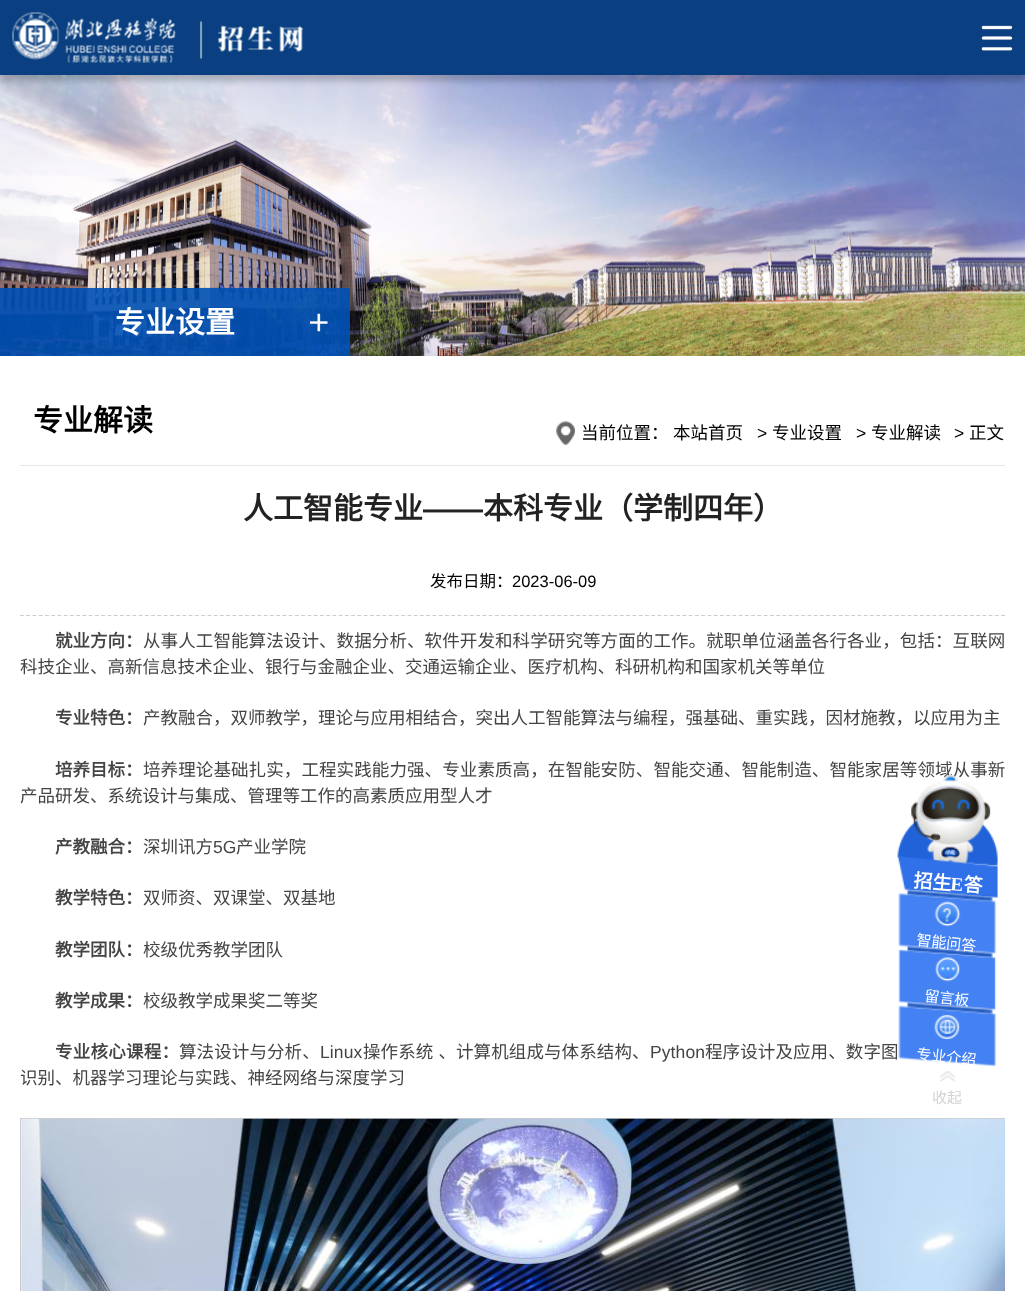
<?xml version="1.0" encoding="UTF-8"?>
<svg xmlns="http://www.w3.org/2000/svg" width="1025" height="1291">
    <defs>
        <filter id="blur1" x="-50%" y="-200%" width="200%" height="500%"><feGaussianBlur stdDeviation="3"/></filter>
        <clipPath id="clip1"><rect x="20" y="616" width="985" height="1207"/></clipPath>
    </defs>
    <rect width="100%" height="100%" fill="#FFFFFF"/>
    <image x="0" y="75" width="1025" height="281" href="img_03.png"/>
    <rect x="0" y="6" width="1025" height="75" fill="#000000" fill-opacity="0.2" filter="url(#blur1)"/>
    <rect x="0" y="0" width="1025" height="75" fill="#0A4081"/>
    <image x="12" y="12" width="292" height="51" href="img_01.png"/>
    <image x="981" y="25" width="32" height="26" href="img_02.png"/>
    <rect x="0" y="288" width="350" height="68" fill="#0051B6" fill-opacity="0.9"/>
    <text x="115" y="333" font-family="Noto Sans CJK SC" font-size="30" font-weight="700" fill="#FFFFFF">专业设置</text>
    <image x="310" y="313" width="18" height="19" href="img_04.png"/>
    <rect x="20" y="465" width="985" height="1" fill="#E7E7E7"/>
    <text x="33" y="431" font-family="Noto Sans CJK SC" font-size="30" font-weight="700" fill="#000000">专业解读</text>
    <image x="556" y="421" width="19" height="24" href="img_05.png"/>
    <text x="581" y="439" font-family="Noto Sans CJK SC" font-size="17.5" fill="#000000">当前位置：</text>
    <text x="673" y="439" font-family="Noto Sans CJK SC" font-size="17.5" fill="#000000">本站首页</text>
    <text x="757" y="439" font-family="Liberation Sans" font-size="17.5" fill="#000000">&gt;</text>
    <text x="772" y="439" font-family="Noto Sans CJK SC" font-size="17.5" fill="#000000">专业设置</text>
    <text x="856" y="439" font-family="Liberation Sans" font-size="17.5" fill="#000000">&gt;</text>
    <text x="871" y="439" font-family="Noto Sans CJK SC" font-size="17.5" fill="#000000">专业解读</text>
    <text x="954" y="439" font-family="Liberation Sans" font-size="17.5" fill="#000000">&gt;</text>
    <text x="969" y="439" font-family="Noto Sans CJK SC" font-size="17.5" fill="#000000">正文</text>
    <path d="M 20 615.5 H 1005" fill="none" stroke="#CCCCCC" stroke-width="1.2" stroke-dasharray="3.75 2.5"/>
    <text x="243" y="519" font-family="Noto Sans CJK SC" font-size="30" font-weight="700" fill="#222222">人工智能专业</text>
    <text x="423" y="519" font-family="Liberation Sans" font-size="30" font-weight="700" fill="#222222">——</text>
    <text x="483" y="519" font-family="Noto Sans CJK SC" font-size="30" font-weight="700" fill="#222222">本科专业（学制四年）</text>
    <text x="430" y="587" font-family="Noto Sans CJK SC" font-size="16.5" fill="#000000">发布日期：</text>
    <text x="512" y="587" font-family="Liberation Sans" font-size="16.5" fill="#000000">2023-06-09</text>
    <text x="55" y="647" font-family="Noto Sans CJK SC" font-size="17.5" font-weight="700" fill="#444444">就业方向：</text>
    <text x="143" y="647" font-family="Noto Sans CJK SC" font-size="17.5" letter-spacing="0.1" fill="#444444">从事人工智能算法设计、数据分析、软件开发和科学研究等方面的工作。就职单位涵盖各行各业，包括：互联网</text>
    <text x="20" y="673" font-family="Noto Sans CJK SC" font-size="17.5" fill="#444444">科技企业、高新信息技术企业、银行与金融企业、交通运输企业、医疗机构、科研机构和国家机关等单位</text>
    <text x="55" y="724" font-family="Noto Sans CJK SC" font-size="17.5" font-weight="700" fill="#444444">专业特色：</text>
    <text x="143" y="724" font-family="Noto Sans CJK SC" font-size="17.5" fill="#444444">产教融合，双师教学，理论与应用相结合，突出人工智能算法与编程，强基础、重实践，因材施教，以应用为主</text>
    <text x="55" y="776" font-family="Noto Sans CJK SC" font-size="17.5" font-weight="700" fill="#444444">培养目标：</text>
    <text x="143" y="776" font-family="Noto Sans CJK SC" font-size="17.5" letter-spacing="0.1" fill="#444444">培养理论基础扎实，工程实践能力强、专业素质高，在智能安防、智能交通、智能制造、智能家居等领域从事新</text>
    <text x="20" y="802" font-family="Noto Sans CJK SC" font-size="17.5" fill="#444444">产品研发、系统设计与集成、管理等工作的高素质应用型人才</text>
    <text x="55" y="853" font-family="Noto Sans CJK SC" font-size="17.5" font-weight="700" fill="#444444">产教融合：</text>
    <text x="143" y="853" font-family="Noto Sans CJK SC" font-size="17.5" fill="#444444">深圳讯方</text>
    <text x="213" y="853" font-family="Liberation Sans" font-size="17.5" fill="#444444">5G</text>
    <text x="236" y="853" font-family="Noto Sans CJK SC" font-size="17.5" fill="#444444">产业学院</text>
    <text x="55" y="904" font-family="Noto Sans CJK SC" font-size="17.5" font-weight="700" fill="#444444">教学特色：</text>
    <text x="143" y="904" font-family="Noto Sans CJK SC" font-size="17.5" fill="#444444">双师资、双课堂、双基地</text>
    <text x="55" y="956" font-family="Noto Sans CJK SC" font-size="17.5" font-weight="700" fill="#444444">教学团队：</text>
    <text x="143" y="956" font-family="Noto Sans CJK SC" font-size="17.5" fill="#444444">校级优秀教学团队</text>
    <text x="55" y="1007" font-family="Noto Sans CJK SC" font-size="17.5" font-weight="700" fill="#444444">教学成果：</text>
    <text x="143" y="1007" font-family="Noto Sans CJK SC" font-size="17.5" fill="#444444">校级教学成果奖二等奖</text>
    <text x="55" y="1058" font-family="Noto Sans CJK SC" font-size="17.5" font-weight="700" letter-spacing="0.25" fill="#444444">专业核心课程：</text>
    <text x="179" y="1058" font-family="Noto Sans CJK SC" font-size="17.5" letter-spacing="0.1" fill="#444444">算法设计与分析、</text>
    <text x="320" y="1058" font-family="Liberation Sans" font-size="17.5" letter-spacing="0.1" fill="#444444">Linux</text>
    <text x="363" y="1058" word-spacing="1" font-family="Noto Sans CJK SC" font-size="17.5" letter-spacing="0.1" fill="#444444">操作系统 、计算机组成与体系结构、</text>
    <text x="650" y="1058" font-family="Liberation Sans" font-size="17.5" letter-spacing="0.1" fill="#444444">Python</text>
    <text x="705" y="1058" font-family="Noto Sans CJK SC" font-size="17.5" letter-spacing="0.1" fill="#444444">程序设计及应用、数字图</text>
    <text x="20" y="1084" font-family="Noto Sans CJK SC" font-size="17.5" fill="#444444">识别、机器学习理论与实践、神经网络与深度学习</text>
    <g clip-path="url(#clip1)">
        <rect x="20.5" y="1118.5" width="999" height="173" fill="none" stroke="#CCCCCC"/>
    </g>
    <image x="21" y="1118" width="984" height="173" href="img_06.png"/>
    <image x="897" y="774" width="101" height="124" href="img_07.png"/>
    <image x="898" y="889" width="99" height="65" href="img_08.png"/>
    <text x="913" y="887" transform="rotate(5 913 887)" font-family="Noto Sans CJK SC" font-size="19" font-weight="700" fill="#FFFFFF">招生</text>
    <text x="950" y="890" transform="rotate(5 950 890)" font-family="Liberation Serif" font-size="19" font-weight="700" fill="#FFFFFF">E</text>
    <text x="963" y="891" transform="rotate(5 963 891)" font-family="Noto Sans CJK SC" font-size="19" font-weight="700" fill="#FFFFFF">答</text>
    <image x="934" y="901" width="27" height="26" href="img_09.png"/>
    <image x="898" y="946" width="99" height="65" href="img_10.png"/>
    <text x="916" y="945" transform="rotate(6 916 945)" font-family="Noto Sans CJK SC" font-size="15" fill="#FFFFFF">智能问答</text>
    <image x="935" y="957" width="26" height="25" href="img_11.png"/>
    <image x="898" y="1002" width="99" height="65" href="img_12.png"/>
    <text x="924" y="1001" transform="rotate(6 924 1001)" font-family="Noto Sans CJK SC" font-size="15" fill="#FFFFFF">留言板</text>
    <image x="934" y="1014" width="26" height="26" href="img_13.png"/>
    <text x="916" y="1059" transform="rotate(6 916 1059)" font-family="Noto Sans CJK SC" font-size="15" fill="#FFFFFF">专业介绍</text>
    <image x="939" y="1071" width="17" height="11" href="img_14.png"/>
    <text x="932" y="1103" font-family="Noto Sans CJK SC" font-size="15" fill="#D2D2D2">收起</text>
</svg>
